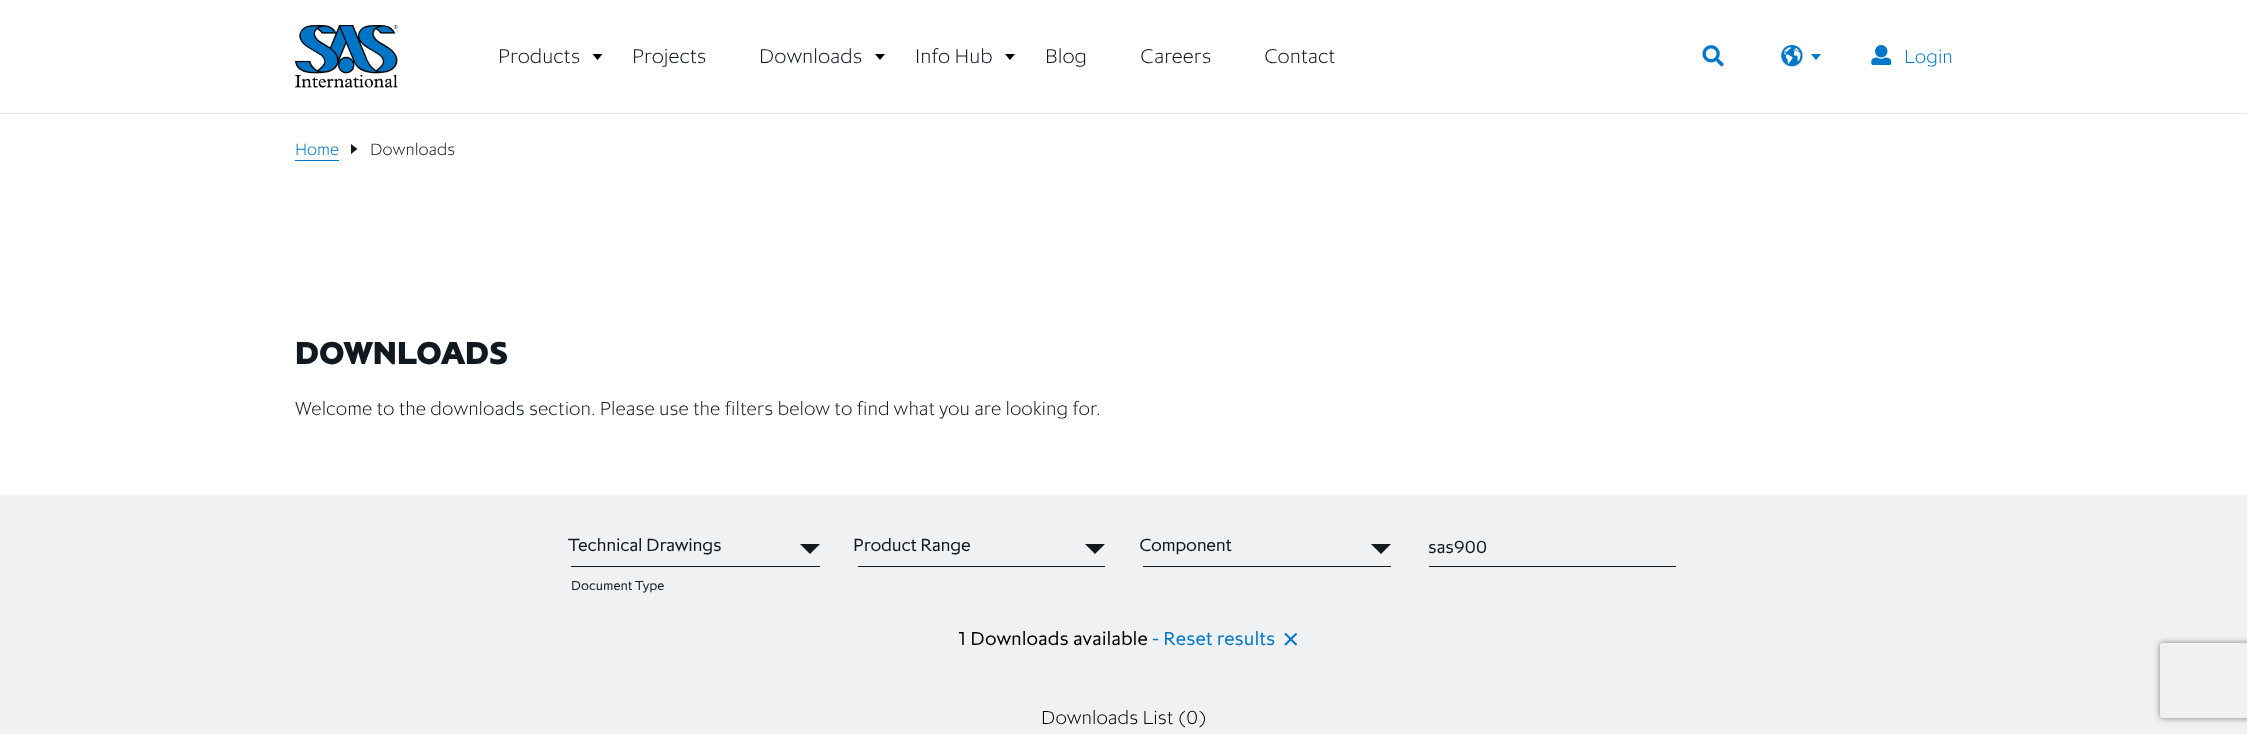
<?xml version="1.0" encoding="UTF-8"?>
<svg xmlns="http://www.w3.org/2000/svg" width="2247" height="734">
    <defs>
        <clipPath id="clip1"><rect x="568" y="533" width="248" height="25"/></clipPath>
        <clipPath id="clip2"><path d="M 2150 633 H 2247 V 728 H 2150 Z M 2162.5 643 H 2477.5 C 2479 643 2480 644 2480 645.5 V 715.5 C 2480 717 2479 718 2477.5 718 H 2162.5 C 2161 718 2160 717 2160 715.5 V 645.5 C 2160 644 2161 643 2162.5 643 Z" clip-rule="evenodd"/></clipPath>
        <filter id="blur1" x="-50%" y="-200%" width="200%" height="500%"><feGaussianBlur stdDeviation="3"/></filter>
    </defs>
    <rect width="100%" height="100%" fill="#FFFFFF"/>
    <image x="295" y="25" width="103" height="63" href="img_01.png"/>
    <text x="498" y="63" font-family="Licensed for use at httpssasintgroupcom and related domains" font-size="21.25" font-weight="300" fill="#101820">Products</text>
    <path d="M 592.5 54 H 602.5 L 597.5 60 Z" fill="#000000"/>
    <text x="632" y="63" font-family="Licensed for use at httpssasintgroupcom and related domains" font-size="21.25" font-weight="300" fill="#101820">Projects</text>
    <text x="759" y="63" font-family="Licensed for use at httpssasintgroupcom and related domains" font-size="21.25" font-weight="300" fill="#101820">Downloads</text>
    <path d="M 875 54 H 885 L 880 60 Z" fill="#000000"/>
    <text x="915" y="63" font-family="Licensed for use at httpssasintgroupcom and related domains" font-size="21.25" font-weight="300" fill="#101820">Info Hub</text>
    <path d="M 1005 54 H 1015 L 1010 60 Z" fill="#000000"/>
    <text x="1045" y="63" font-family="Licensed for use at httpssasintgroupcom and related domains" font-size="21.25" font-weight="300" fill="#101820">Blog</text>
    <text x="1140" y="63" font-family="Licensed for use at httpssasintgroupcom and related domains" font-size="21.25" font-weight="300" fill="#101820">Careers</text>
    <text x="1264" y="63" font-family="Licensed for use at httpssasintgroupcom and related domains" font-size="21.25" font-weight="300" fill="#101820">Contact</text>
    <image x="1702" y="45" width="22" height="22" href="img_02.png"/>
    <image x="1781" y="45" width="22" height="22" href="img_03.png"/>
    <path d="M 1811 54 H 1821 L 1816 60 Z" fill="#0077C9"/>
    <image x="1871" y="45" width="21" height="20" href="img_04.png"/>
    <text x="1904" y="63" font-family="Licensed for use at httpssasintgroupcom and related domains" font-size="20" font-weight="300" fill="#0077C9">Login</text>
    <rect x="0" y="113" width="2247" height="1" fill="#E5E5E5"/>
    <text x="295" y="155" font-family="Licensed for use at httpssasintgroupcom and related domains" font-size="17.5" font-weight="300" fill="#0077C9">Home</text>
    <rect x="295" y="160" width="44" height="1" fill="#0077C9"/>
    <path d="M 351 154 V 144 L 357.5 149 Z" fill="#101820"/>
    <text x="370" y="155" font-family="Licensed for use at httpssasintgroupcom and related domains" font-size="17.5" font-weight="300" fill="#101820">Downloads</text>
    <text x="295" y="364" font-family="Licensed for use at httpssasintgroupcom and related domains" font-size="33.75" font-weight="800" fill="#101820">DOWNLOADS</text>
    <text x="295" y="415" font-family="Licensed for use at httpssasintgroupcom and related domains" font-size="20" font-weight="300" fill="#101820">Welcome to the downloads section. Please use the filters below to find what you are looking for.</text>
    <rect x="0" y="495" width="2247" height="239" fill="#EFF1F2"/>
    <rect x="571" y="566" width="249" height="1" fill="#101820"/>
    <g clip-path="url(#clip1)">
        <text x="568" y="551" font-family="Licensed for use at httpssasintgroupcom and related domains" font-size="18.75" letter-spacing="-0.25" fill="#101820">Technical Drawings</text>
    </g>
    <path d="M 800 544 H 820 L 810 554 Z" fill="#101820"/>
    <text x="571" y="590" font-family="Licensed for use at httpssasintgroupcom and related domains" font-size="13.75" fill="#101820">Document Type</text>
    <rect x="858" y="566" width="247" height="1" fill="#101820"/>
    <text x="853" y="551" font-family="Licensed for use at httpssasintgroupcom and related domains" font-size="18.75" letter-spacing="-0.25" fill="#101820">Product Range</text>
    <path d="M 1085 544 H 1105 L 1095 554 Z" fill="#101820"/>
    <rect x="1143" y="566" width="248" height="1" fill="#101820"/>
    <text x="1139" y="551" font-family="Licensed for use at httpssasintgroupcom and related domains" font-size="18.75" letter-spacing="-0.25" fill="#101820">Component</text>
    <path d="M 1371 544 H 1391 L 1381 554 Z" fill="#101820"/>
    <rect x="1429" y="566" width="247" height="1" fill="#101820"/>
    <text x="1428" y="553" font-family="Licensed for use at httpssasintgroupcom and related domains" font-size="18.75" letter-spacing="-0.25" fill="#101820">sas900</text>
    <text x="958" y="645" font-family="Licensed for use at httpssasintgroupcom and related domains" font-size="20" fill="#000000">1 Downloads available</text>
    <text x="1152" y="645" font-family="Licensed for use at httpssasintgroupcom and related domains" font-size="20" fill="#0077C9">- Reset results</text>
    <image x="1284" y="632" width="14" height="14" href="img_05.png"/>
    <text x="1041" y="724" font-family="Licensed for use at httpssasintgroupcom and related domains" font-size="20" font-weight="300" fill="#000000">Downloads List (0)</text>
    <g clip-path="url(#clip2)">
        <rect x="2160" y="643" width="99" height="75" rx="2.5" fill="#808080" filter="url(#blur1)"/>
    </g>
</svg>
